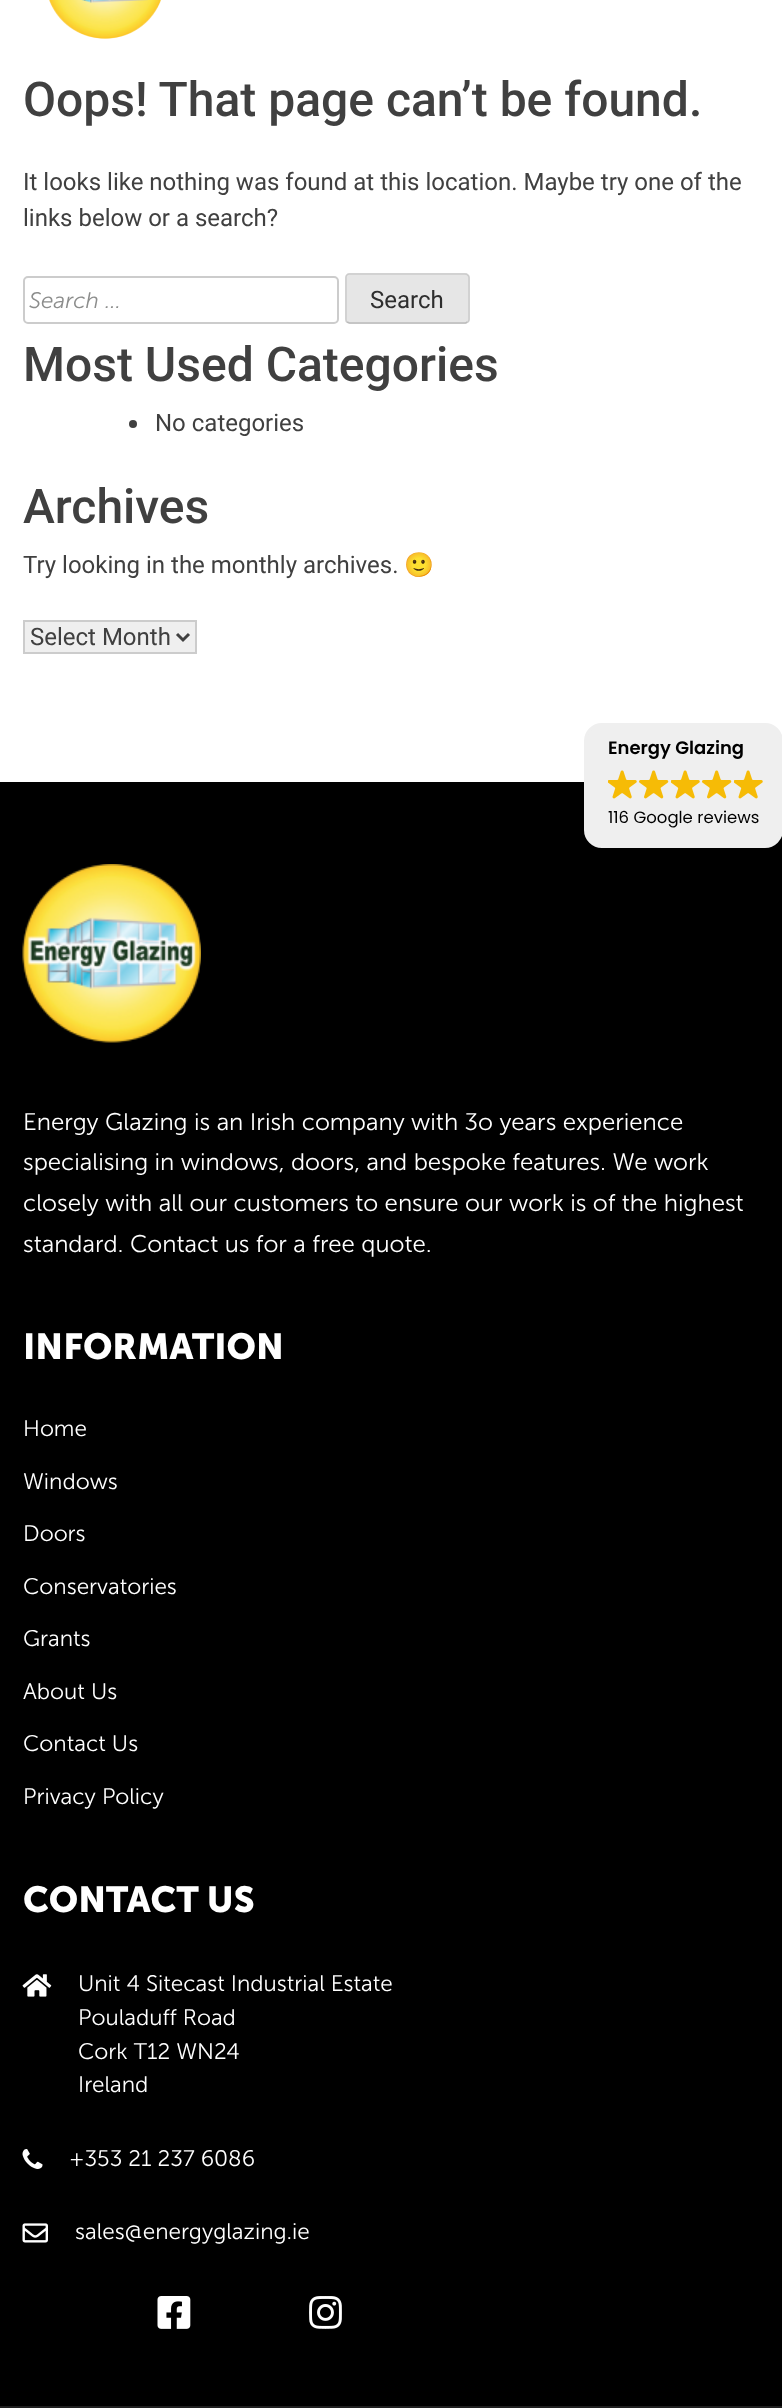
<?xml version="1.0" encoding="UTF-8"?>
<svg xmlns="http://www.w3.org/2000/svg" width="782" height="2408">
    <rect width="100%" height="100%" fill="#FFFFFF"/>
    <image x="49" y="0" width="112" height="39" href="img_01.png"/>
    <text x="23" y="116" font-family="Roboto" font-size="48" font-weight="500" fill="#404040">Oops! That page can’t be found.</text>
    <text font-family="Roboto" font-size="24" fill="#404040">
        <tspan x="23" y="190">It looks like nothing was found at this location. Maybe try one of the</tspan>
        <tspan x="23" y="226">links below or a search?</tspan>
    </text>
    <rect x="24" y="277" width="314" height="46" rx="4" fill="none" stroke="#CCCCCC" stroke-width="2"/>
    <text x="29" y="308" font-family="Museo Sans" font-size="22.5" font-weight="300" font-style="italic" fill="#8C8D8C">Search …</text>
    <rect x="345" y="273" width="125" height="51" rx="5" fill="#E6E6E6"/>
    <path d="M 467.5 322 L 465.5 323 H 369 H 349.5 L 347 322" fill="none" stroke="#BBBBBB" stroke-width="1.5"/>
    <path d="M 347 322 C 346 321.5 346 320.5 346 319.5 V 277.5 C 346 276.5 346 275.5 347 275 C 347.5 274 348.5 274 349.5 274 H 465 C 466 274 467 274 467.5 275 C 468.5 275.5 469 276.5 469 277.5 V 319.5 C 469 320.5 468.5 321.5 467.5 322" fill="none" stroke="#CCCCCC" stroke-width="1.5"/>
    <text x="370" y="308" font-family="Roboto" font-size="24" fill="#2E2E2E">Search</text>
    <text x="23" y="381" font-family="Roboto" font-size="48" font-weight="500" fill="#404040">Most Used Categories</text>
    <circle cx="133" cy="424" r="4" fill="#404040"/>
    <text x="155" y="431" font-family="Roboto" font-size="24" fill="#404040">No categories</text>
    <text x="23" y="523" font-family="Roboto" font-size="48" font-weight="500" fill="#404040">Archives</text>
    <text x="23" y="573" font-family="Roboto" font-size="24" fill="#404040">Try looking in the monthly archives.</text>
    <text x="404" y="573" font-family="Noto Color Emoji" font-size="24" fill="#404040">🙂</text>
    <rect x="24" y="621" width="172" height="32" fill="#EFEFEF" stroke="#CCCCCC" stroke-width="2"/>
    <path d="M 177 634 L 183 640 L 189 634" fill="none" stroke="#404040" stroke-width="3"/>
    <text x="30" y="645" font-family="Roboto" font-size="24" fill="#404040">Select Month</text>
    <rect x="0" y="782" width="782" height="1624" fill="#000000"/>
    <rect x="585.5" y="724.5" width="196" height="122" rx="16.5" fill="#EFEFEF" stroke="#EFEFEF" stroke-width="3"/>
    <text x="608" y="754" font-family="Poppins" font-size="18" font-weight="600" fill="#000000">Energy Glazing</text>
    <image x="608" y="770" width="29" height="29" href="img_02.png"/>
    <image x="639" y="770" width="30" height="29" href="img_03.png"/>
    <image x="671" y="770" width="29" height="29" href="img_02.png"/>
    <image x="702" y="770" width="30" height="29" href="img_03.png"/>
    <image x="734" y="770" width="29" height="29" href="img_02.png"/>
    <text x="608" y="823" font-family="Poppins" font-size="16.5" fill="#000000">116 Google reviews</text>
    <image x="22" y="864" width="179" height="179" href="img_04.png"/>
    <text font-family="Museo Sans" font-size="24" font-weight="300" fill="#FFFFFF">
        <tspan x="23" y="1130">Energy Glazing is an Irish company with 3o years experience</tspan>
        <tspan x="23" y="1170">specialising in windows, doors, and bespoke features. We work</tspan>
        <tspan x="23" y="1211">closely with all our customers to ensure our work is of the highest</tspan>
        <tspan x="23" y="1252">standard. Contact us for a free quote.</tspan>
    </text>
    <text x="23" y="1359" font-family="Museo Sans" font-size="36" font-weight="700" fill="#FFFFFF">INFORMATION</text>
    <text x="23" y="1436" font-family="Museo Sans" font-size="22.5" font-weight="300" fill="#FFFFFF">Home</text>
    <text x="23" y="1489" font-family="Museo Sans" font-size="22.5" font-weight="300" fill="#FFFFFF">Windows</text>
    <text x="23" y="1541" font-family="Museo Sans" font-size="22.5" font-weight="300" fill="#FFFFFF">Doors</text>
    <text x="23" y="1594" font-family="Museo Sans" font-size="22.5" font-weight="300" fill="#FFFFFF">Conservatories</text>
    <text x="23" y="1646" font-family="Museo Sans" font-size="22.5" font-weight="300" fill="#FFFFFF">Grants</text>
    <text x="23" y="1699" font-family="Museo Sans" font-size="22.5" font-weight="300" fill="#FFFFFF">About Us</text>
    <text x="23" y="1751" font-family="Museo Sans" font-size="22.5" font-weight="300" fill="#FFFFFF">Contact Us</text>
    <text x="23" y="1804" font-family="Museo Sans" font-size="22.5" font-weight="300" fill="#FFFFFF">Privacy Policy</text>
    <text x="23" y="1912" font-family="Museo Sans" font-size="36" font-weight="700" fill="#FFFFFF">CONTACT US</text>
    <image x="22" y="1974" width="30" height="23" href="img_05.png"/>
    <text font-family="Museo Sans" font-size="22.5" font-weight="300" fill="#FFFFFF">
        <tspan x="78" y="1991">Unit 4 Sitecast Industrial Estate</tspan>
        <tspan x="78" y="2025">Pouladuff Road</tspan>
        <tspan x="78" y="2059">Cork T12 WN24</tspan>
        <tspan x="78" y="2092">Ireland</tspan>
    </text>
    <image x="22" y="2149" width="21" height="20" href="img_06.png"/>
    <text x="69" y="2166" font-family="Museo Sans" font-size="22.5" font-weight="300" fill="#FFFFFF">+353 21 237 6086</text>
    <image x="22" y="2223" width="26" height="20" href="img_07.png"/>
    <text x="75" y="2239" font-family="Museo Sans" font-size="22.5" font-weight="300" fill="#FFFFFF">sales@energyglazing.ie</text>
    <image x="157" y="2296" width="34" height="33" href="img_08.png"/>
    <image x="309" y="2296" width="33" height="33" href="img_09.png"/>
    <rect x="0" y="2406" width="782" height="2" fill="#202020"/>
</svg>
